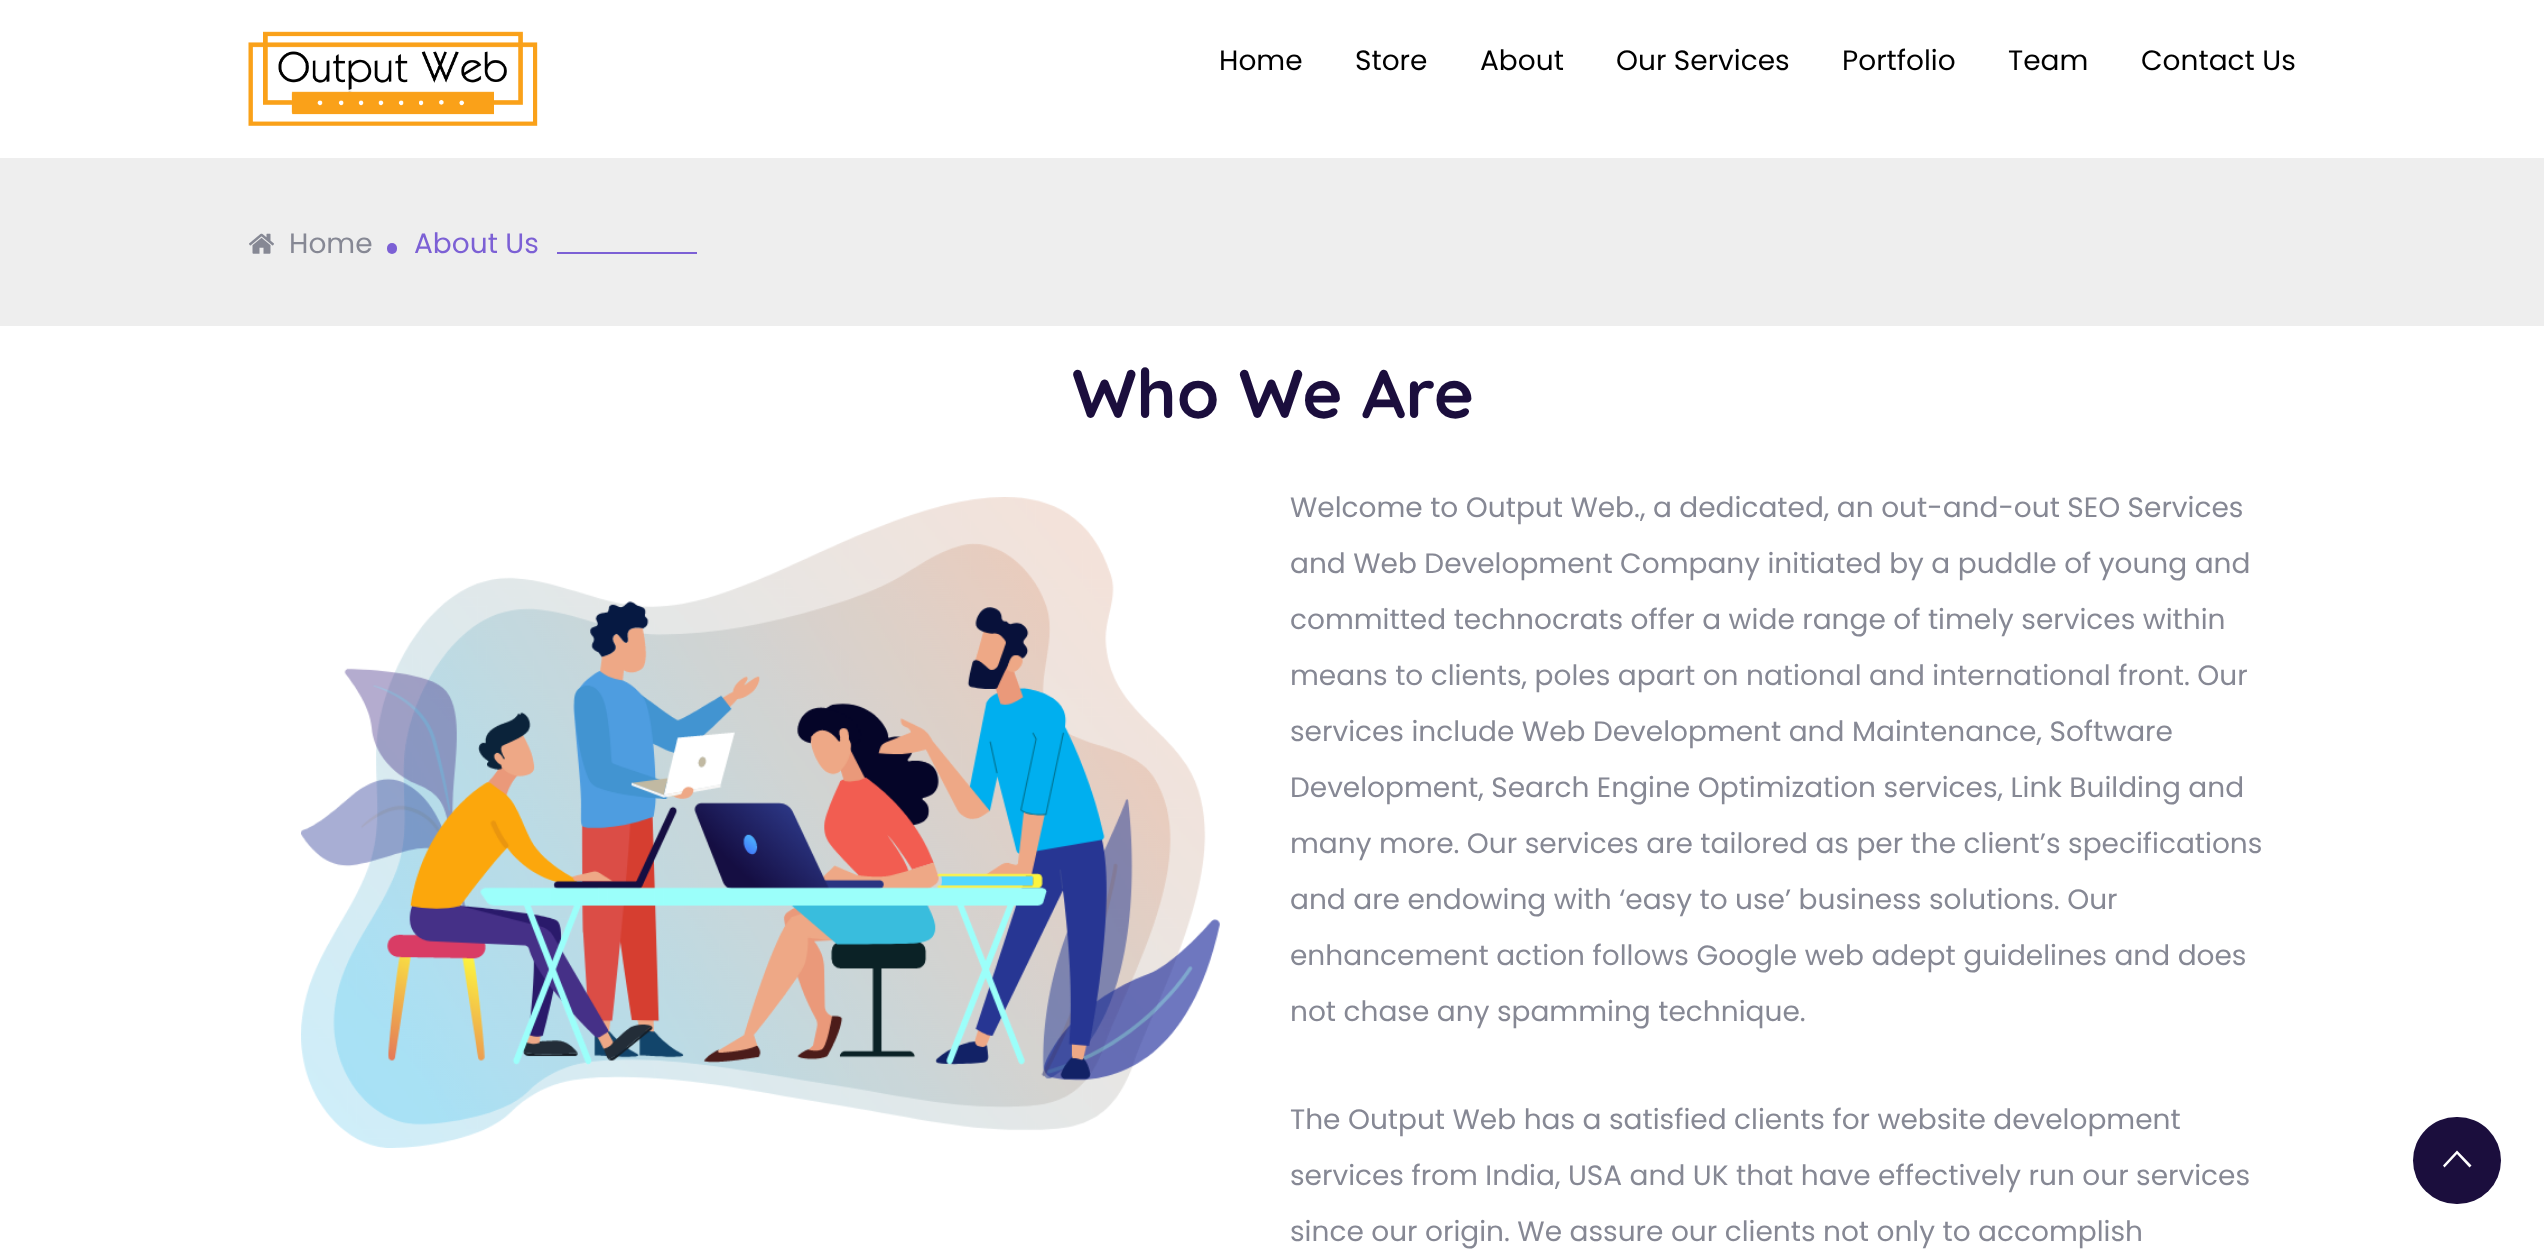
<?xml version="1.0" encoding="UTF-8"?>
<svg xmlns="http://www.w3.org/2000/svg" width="2544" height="1256">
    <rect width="100%" height="100%" fill="#FFFFFF"/>
    <image x="248" y="31" width="290" height="95" href="img_01.png"/>
    <text x="1219" y="70" font-family="Poppins" font-size="28" fill="#000000">Home</text>
    <text x="1355" y="70" font-family="Poppins" font-size="28" fill="#000000">Store</text>
    <text x="1480" y="70" font-family="Poppins" font-size="28" fill="#000000">About</text>
    <text x="1616" y="70" font-family="Poppins" font-size="28" fill="#000000">Our Services</text>
    <text x="1842" y="70" font-family="Poppins" font-size="28" fill="#000000">Portfolio</text>
    <text x="2008" y="70" font-family="Poppins" font-size="28" fill="#000000">Team</text>
    <text x="2141" y="70" font-family="Poppins" font-size="28" fill="#000000">Contact Us</text>
    <rect x="0" y="158" width="2544" height="168" fill="#EEEEEE"/>
    <image x="249" y="233" width="25" height="21" href="img_02.png"/>
    <text x="289" y="253" font-family="Poppins" font-size="28" fill="#868894">Home</text>
    <rect x="387" y="243" width="10" height="11" rx="5" fill="#7C60D5"/>
    <text x="414" y="253" font-family="Poppins" font-size="28" fill="#7C60D5">About Us</text>
    <rect x="557" y="252" width="140" height="2" fill="#7C60D5"/>
    <text x="1072" y="418" font-family="Quicksand" font-size="68.5" font-weight="700" fill="#1B0E3D">Who We Are</text>
    <image x="301" y="497" width="919" height="651" href="img_03.png"/>
    <text x="1290" y="517" font-family="Poppins" font-size="28" fill="#868894">Welcome to Output Web., a dedicated, an out-and-out SEO Services</text>
    <text x="1290" y="573" font-family="Poppins" font-size="28" fill="#868894">and Web Development Company initiated by a puddle of young and</text>
    <text x="1290" y="629" font-family="Poppins" font-size="28" fill="#868894">committed technocrats offer a wide range of timely services within</text>
    <text x="1290" y="685" font-family="Poppins" font-size="28" fill="#868894">means to clients, poles apart on national and international front. Our</text>
    <text x="1290" y="741" font-family="Poppins" font-size="28" fill="#868894">services include Web Development and Maintenance, Software</text>
    <text x="1290" y="797" font-family="Poppins" font-size="28" fill="#868894">Development, Search Engine Optimization services, Link Building and</text>
    <text x="1290" y="853" font-family="Poppins" font-size="28" fill="#868894">many more. Our services are tailored as per the client’s specifications</text>
    <text x="1290" y="909" font-family="Poppins" font-size="28" fill="#868894">and are endowing with ‘easy to use’ business solutions. Our</text>
    <text x="1290" y="965" font-family="Poppins" font-size="28" fill="#868894">enhancement action follows Google web adept guidelines and does</text>
    <text x="1290" y="1021" font-family="Poppins" font-size="28" fill="#868894">not chase any spamming technique.</text>
    <text x="1290" y="1129" font-family="Poppins" font-size="28" fill="#868894">The Output Web has a satisfied clients for website development</text>
    <text x="1290" y="1185" font-family="Poppins" font-size="28" fill="#868894">services from India, USA and UK that have effectively run our services</text>
    <text x="1290" y="1241" font-family="Poppins" font-size="28" fill="#868894">since our origin. We assure our clients not only to accomplish</text>
    <rect x="2413" y="1117" width="88" height="87" rx="43.5" fill="#1B0E3D"/>
    <path d="M 2469.5 1167.5 L 2457 1154 L 2444.5 1167.5 L 2443 1165.5 L 2457 1150.5 L 2471.5 1165.5 Z" fill="#FFFFFF"/>
</svg>
